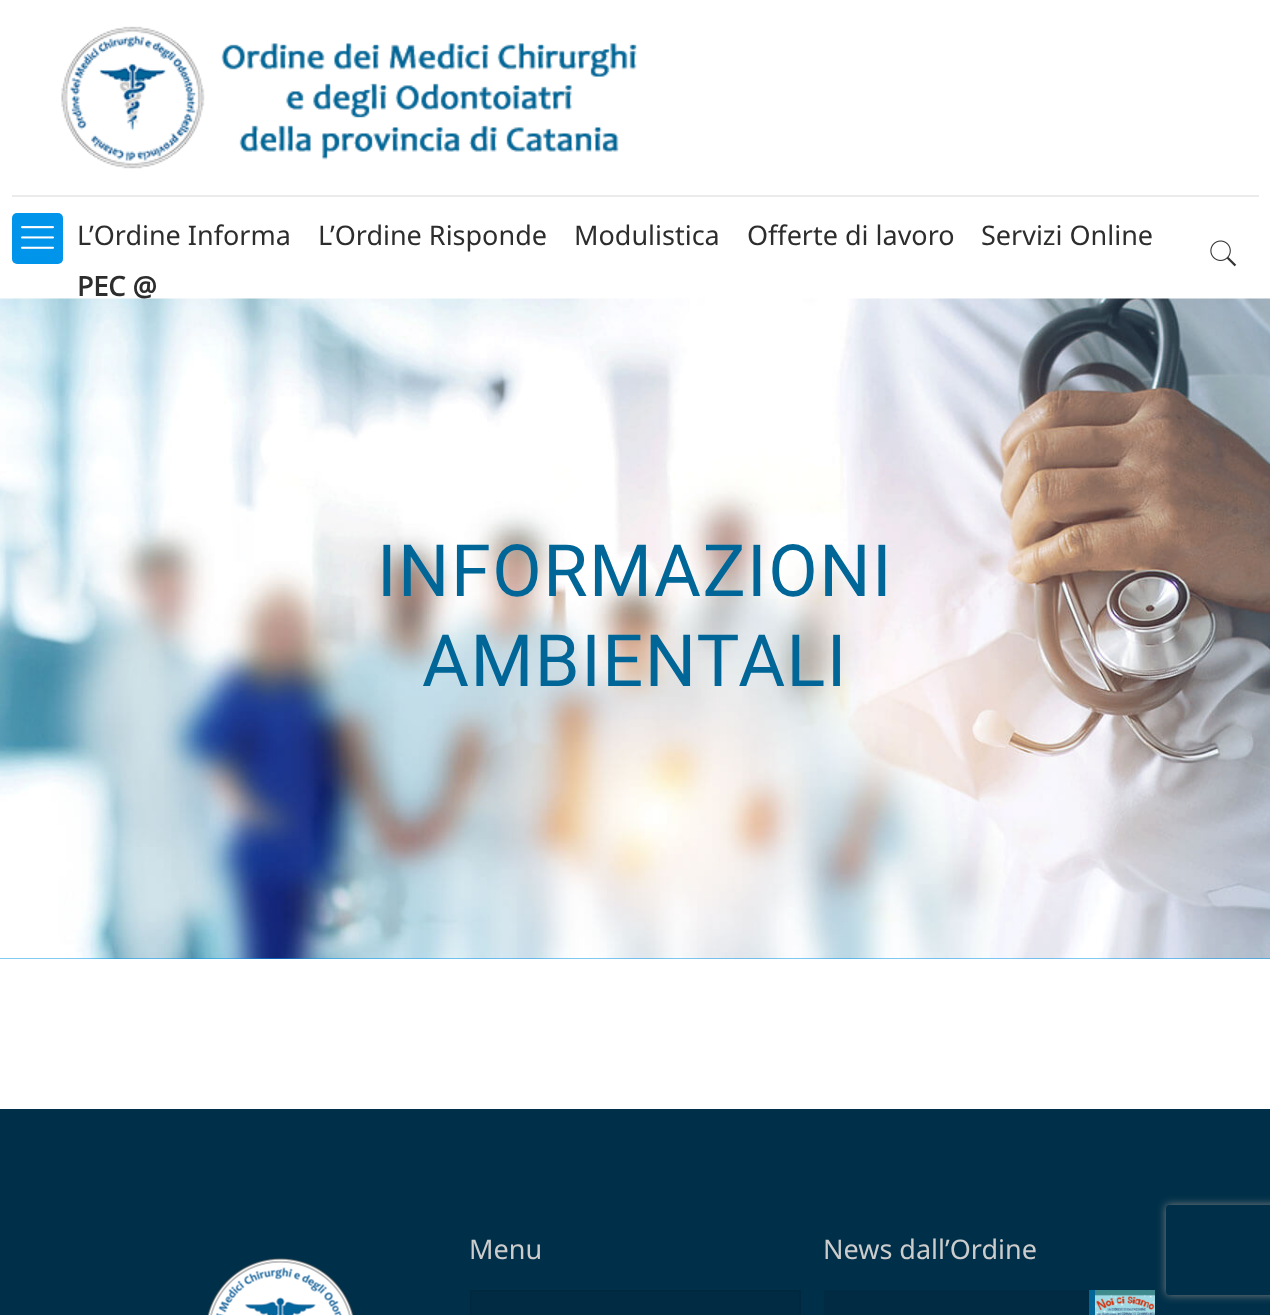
<?xml version="1.0" encoding="UTF-8"?>
<svg xmlns="http://www.w3.org/2000/svg" width="1270" height="1315">
    <defs>
        <clipPath id="clip1"><path d="M 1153 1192 H 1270 V 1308 H 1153 Z M 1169 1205 H 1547 C 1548.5 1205 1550 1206.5 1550 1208 V 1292 C 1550 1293.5 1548.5 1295 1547 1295 H 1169 C 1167.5 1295 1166 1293.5 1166 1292 V 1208 C 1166 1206.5 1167.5 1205 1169 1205 Z" clip-rule="evenodd"/></clipPath>
        <filter id="blur1" x="-50%" y="-200%" width="200%" height="500%"><feGaussianBlur stdDeviation="4"/></filter>
    </defs>
    <rect width="100%" height="100%" fill="#FFFFFF"/>
    <rect x="12" y="195" width="1247" height="2" fill="#EBEBEB"/>
    <image x="61" y="26" width="576" height="143" href="img_01.png"/>
    <rect x="12" y="213" width="51" height="51" rx="5" fill="#0095EB"/>
    <image x="21" y="226" width="33" height="23" href="img_02.png"/>
    <text x="77" y="245" font-family="Noto Sans" font-size="27" fill="#2D2D2D">L’Ordine Informa</text>
    <text x="318" y="245" font-family="Noto Sans" font-size="27" fill="#2D2D2D">L’Ordine Risponde</text>
    <text x="574" y="245" font-family="Noto Sans" font-size="27" fill="#2D2D2D">Modulistica</text>
    <text x="747" y="245" font-family="Noto Sans" font-size="27" fill="#2D2D2D">Offerte di lavoro</text>
    <text x="981" y="245" font-family="Noto Sans" font-size="27" fill="#2D2D2D">Servizi Online</text>
    <rect x="0" y="958" width="1270" height="1" fill="#0095EB"/>
    <image x="0" y="298" width="1270" height="661" href="img_04.png"/>
    <text x="77" y="296" font-family="Noto Sans" font-size="27" font-weight="700" fill="#2D2D2D">PEC @</text>
    <image x="1210" y="240" width="27" height="27" href="img_03.png"/>
    <text x="377" y="596" font-family="Roboto" font-size="72" letter-spacing="1.5" fill="#006698">INFORMAZIONI</text>
    <text x="422" y="686" font-family="Roboto" font-size="72" letter-spacing="1.5" fill="#006698">AMBIENTALI</text>
    <rect x="0" y="1109" width="1270" height="206" fill="#003049"/>
    <text x="469" y="1259" font-family="Noto Sans" font-size="27" fill="#CCCCCC">Menu</text>
    <rect x="471" y="1291" width="329" height="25" fill="#002B42" stroke="#00293F" stroke-width="2"/>
    <text x="823" y="1259" font-family="Noto Sans" font-size="27" fill="#CCCCCC">News dall’Ordine</text>
    <rect x="824" y="1290" width="265" height="25" fill="#002B42"/>
    <rect x="1089" y="1290" width="6" height="25" fill="#006698"/>
    <image x="1095" y="1290" width="60" height="25" href="img_05.png"/>
    <image x="207" y="1258" width="147" height="57" href="img_06.png"/>
    <g clip-path="url(#clip1)">
        <rect x="1166" y="1205" width="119" height="90" rx="3" fill="#808080" filter="url(#blur1)"/>
    </g>
</svg>
